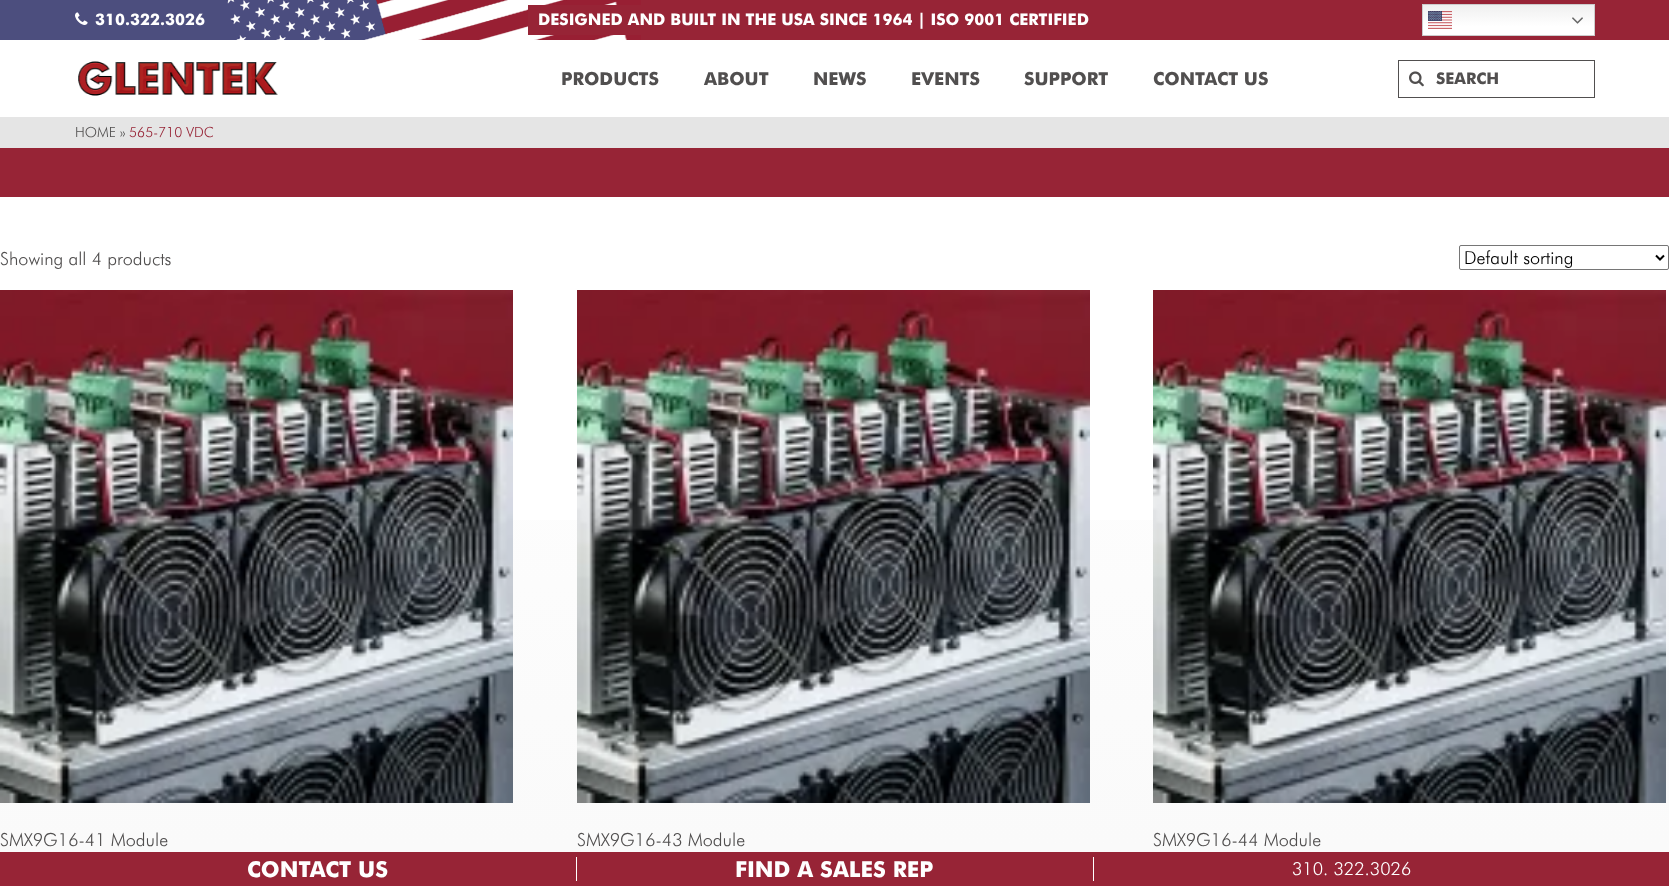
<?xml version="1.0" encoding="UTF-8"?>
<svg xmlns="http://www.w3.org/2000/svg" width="1669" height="886">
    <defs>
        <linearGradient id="g1" gradientUnits="userSpaceOnUse" x1="1509" y1="4" x2="1509" y2="36"><stop offset="0" stop-color="#EFEFEF"/><stop offset="0.7" stop-color="#FFFFFF"/></linearGradient>
        <linearGradient id="g2" gradientUnits="userSpaceOnUse" x1="834" y1="197" x2="835" y2="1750"><stop offset="0" stop-color="#FFFFFF"/><stop offset="1" stop-color="#F3F3F3"/></linearGradient>
    </defs>
    <rect width="100%" height="100%" fill="#FFFFFF"/>
    <rect x="0" y="0" width="220" height="40" fill="#4C4E7E"/>
    <rect x="641" y="0" width="1028" height="40" fill="#972436"/>
    <image x="75" y="12" width="13" height="13" href="img_01.png"/>
    <text x="95" y="25" font-family="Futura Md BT" font-size="16" font-weight="700" fill="#FFFFFF">310.322.3026</text>
    <image x="220" y="0" width="421" height="40" href="img_02.png"/>
    <rect x="528" y="5" width="113" height="30" fill="#972436"/>
    <text x="538" y="25" font-family="Futura Md BT" font-size="16" font-weight="700" fill="#FFFFFF">DESIGNED AND BUILT IN THE USA SINCE 1964 | ISO 9001 CERTIFIED</text>
    <rect x="1423" y="5" width="171" height="30" fill="url(#g1)"/>
    <rect x="1422.5" y="4.5" width="172" height="31" fill="none" stroke="#CCCCCC"/>
    <image x="1428" y="11" width="24" height="18" href="img_03.png"/>
    <image x="1572" y="17" width="11" height="7" href="img_04.png"/>
    <image x="78" y="61" width="200" height="35" href="img_05.png"/>
    <text x="561" y="85" font-family="Futura Md BT" font-size="18" font-weight="700" fill="#514F4F">PRODUCTS</text>
    <text x="704" y="85" font-family="Futura Md BT" font-size="18" font-weight="700" fill="#514F4F">ABOUT</text>
    <text x="813" y="85" font-family="Futura Md BT" font-size="18" font-weight="700" fill="#514F4F">NEWS</text>
    <text x="911" y="85" font-family="Futura Md BT" font-size="18" font-weight="700" fill="#514F4F">EVENTS</text>
    <text x="1024" y="85" font-family="Futura Md BT" font-size="18" font-weight="700" fill="#514F4F">SUPPORT</text>
    <text x="1153" y="85" font-family="Futura Md BT" font-size="18" font-weight="700" fill="#514F4F">CONTACT US</text>
    <rect x="1398.5" y="60.5" width="196" height="37" fill="none" stroke="#514F4F"/>
    <image x="1409" y="71" width="15" height="16" href="img_06.png"/>
    <text x="1436" y="84" font-family="Futura Md BT" font-size="16" font-weight="700" fill="#514F4F">SEARCH</text>
    <rect x="0" y="117" width="1669" height="31" fill="#E5E5E5"/>
    <text x="75" y="137" font-family="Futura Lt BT" font-size="14" font-weight="300" fill="#514F4F">HOME »</text>
    <text x="129" y="137" font-family="Futura Lt BT" font-size="14" font-weight="300" fill="#972436">565-710 VDC</text>
    <rect x="0" y="148" width="1669" height="49" fill="#972436"/>
    <rect x="0" y="520" width="1669" height="332" fill="url(#g2)"/>
    <text x="0" y="265" font-family="Futura Lt BT" font-size="18" font-weight="300" fill="#514F4F">Showing all 4 products</text>
    <rect x="1459.5" y="245.5" width="209" height="24" rx="1.5" fill="none" stroke="#767676"/>
    <path d="M 1656 255.5 L 1660 259.5 L 1664 255.5" fill="none" stroke="#000000" stroke-width="2"/>
    <text x="1464" y="264" font-family="Futura Lt BT" font-size="18" font-weight="300" fill="#000000">Default sorting</text>
    <image x="0" y="290" width="513" height="513" href="img_07.png"/>
    <text x="0" y="846" font-family="Futura Lt BT" font-size="18" font-weight="300" fill="#514F4F">SMX9G16-41 Module</text>
    <image x="577" y="290" width="513" height="513" href="img_08.png"/>
    <text x="577" y="846" font-family="Futura Lt BT" font-size="18" font-weight="300" fill="#514F4F">SMX9G16-43 Module</text>
    <image x="1153" y="290" width="513" height="513" href="img_09.png"/>
    <text x="1153" y="846" font-family="Futura Lt BT" font-size="18" font-weight="300" fill="#514F4F">SMX9G16-44 Module</text>
    <rect x="0" y="852" width="1669" height="34" fill="#972436"/>
    <text x="247" y="877" font-family="Futura Md BT" font-size="22" font-weight="700" fill="#FFFFFF">CONTACT US</text>
    <rect x="576" y="857" width="1" height="24" fill="#FFFFFF"/>
    <text x="735" y="877" font-family="Futura Md BT" font-size="22" font-weight="700" fill="#FFFFFF">FIND A SALES REP</text>
    <rect x="1093" y="857" width="1" height="24" fill="#FFFFFF"/>
    <text x="1292" y="875" font-family="Futura Lt BT" font-size="18" font-weight="300" fill="#FFFFFF">310. 322.3026</text>
</svg>
